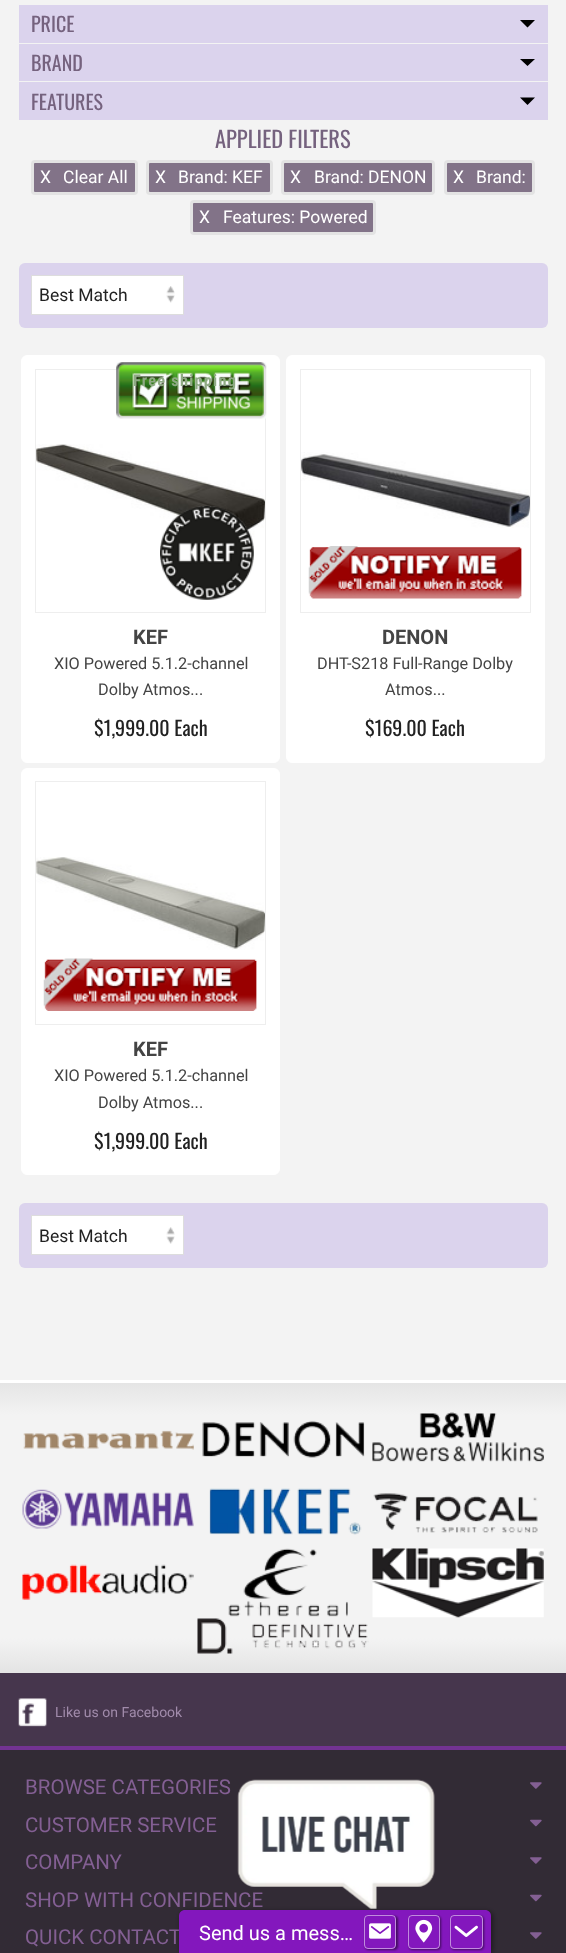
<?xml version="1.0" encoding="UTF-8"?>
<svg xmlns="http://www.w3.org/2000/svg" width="566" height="1953">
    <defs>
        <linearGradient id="g1" gradientUnits="userSpaceOnUse" x1="283" y1="1383" x2="283" y2="1673"><stop offset="0" stop-color="#E5E5E5"/><stop offset="0.11" stop-color="#F3F3F3"/><stop offset="0.88" stop-color="#F3F3F3"/><stop offset="0.99" stop-color="#E5E5E5"/></linearGradient>
        <filter id="blur1" x="-50%" y="-200%" width="200%" height="500%"><feGaussianBlur stdDeviation="2.5"/></filter>
        <clipPath id="clip1"><path d="M 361 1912 H 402 V 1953 H 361 Z M 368 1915 H 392 C 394 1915 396 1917 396 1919 V 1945 C 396 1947 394 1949 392 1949 H 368 C 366 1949 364 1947 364 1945 V 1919 C 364 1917 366 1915 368 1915 Z" clip-rule="evenodd"/></clipPath>
        <filter id="blur2" x="-50%" y="-200%" width="200%" height="500%"><feGaussianBlur stdDeviation="1"/></filter>
        <clipPath id="clip2"><path d="M 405 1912 H 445 V 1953 H 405 Z M 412 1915 H 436 C 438 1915 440 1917 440 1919 V 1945 C 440 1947 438 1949 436 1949 H 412 C 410 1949 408 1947 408 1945 V 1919 C 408 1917 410 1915 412 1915 Z" clip-rule="evenodd"/></clipPath>
        <clipPath id="clip3"><path d="M 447 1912 H 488 V 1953 H 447 Z M 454 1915 H 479 C 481 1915 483 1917 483 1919 V 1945 C 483 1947 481 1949 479 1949 H 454 C 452 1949 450 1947 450 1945 V 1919 C 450 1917 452 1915 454 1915 Z" clip-rule="evenodd"/></clipPath>
    </defs>
    <rect width="100%" height="100%" fill="#F3F3F3"/>
    <rect x="19" y="5" width="529" height="38" fill="#DBD3ED"/>
    <text x="31" y="32" font-family="Oswald" font-size="20" fill="#75627E">PRICE</text>
    <rect x="19" y="44" width="529" height="37" fill="#DBD3ED"/>
    <path d="M 520 20 H 535 L 527.5 27.5 Z M 520 59 H 535 L 527.5 66 Z" fill="#000000"/>
    <text x="31" y="71" font-family="Oswald" font-size="20" fill="#75627E">BRAND</text>
    <rect x="19" y="82" width="529" height="38" fill="#DBD3ED"/>
    <text x="31" y="110" font-family="Oswald" font-size="20" fill="#75627E">FEATURES</text>
    <path d="M 520 97.5 H 535 L 527.5 105 Z" fill="#000000"/>
    <text x="215" y="148" font-family="Oswald" font-size="22.5" fill="#75627E">APPLIED FILTERS</text>
    <rect x="32.5" y="161.5" width="104" height="32" rx="2.5" fill="#827388" stroke="#E3E3E3" stroke-width="3"/>
    <text x="40" y="183" font-family="Roboto" font-size="17.5" fill="#FFFFFF">X</text>
    <text x="63" y="183" font-family="Roboto" font-size="17.5" fill="#FFFFFF">Clear All</text>
    <rect x="147.5" y="161.5" width="124" height="32" rx="2.5" fill="#827388" stroke="#E3E3E3" stroke-width="3"/>
    <text x="155" y="183" font-family="Roboto" font-size="17.5" fill="#FFFFFF">X</text>
    <text x="178" y="183" font-family="Roboto" font-size="17.5" fill="#FFFFFF">Brand: KEF</text>
    <rect x="282.5" y="161.5" width="151" height="32" rx="2.5" fill="#827388" stroke="#E3E3E3" stroke-width="3"/>
    <text x="290" y="183" font-family="Roboto" font-size="17.5" fill="#FFFFFF">X</text>
    <text x="314" y="183" font-family="Roboto" font-size="17.5" fill="#FFFFFF">Brand: DENON</text>
    <rect x="445.5" y="161.5" width="88" height="32" rx="2.5" fill="#827388" stroke="#E3E3E3" stroke-width="3"/>
    <text x="453" y="183" font-family="Roboto" font-size="17.5" fill="#FFFFFF">X</text>
    <text x="476" y="183" font-family="Roboto" font-size="17.5" fill="#FFFFFF">Brand:</text>
    <rect x="191.5" y="201.5" width="183" height="32" rx="2.5" fill="#827388" stroke="#E3E3E3" stroke-width="3"/>
    <text x="199" y="223" font-family="Roboto" font-size="17.5" fill="#FFFFFF">X</text>
    <text x="223" y="223" font-family="Roboto" font-size="17.5" fill="#FFFFFF">Features: Powered</text>
    <rect x="19" y="263" width="529" height="65" rx="6" fill="#DBD3ED"/>
    <rect x="32" y="276" width="151" height="38" fill="#FFFFFF"/>
    <image x="166" y="286" width="9" height="17" href="img_01.png"/>
    <rect x="31.5" y="275.5" width="152" height="39" fill="none" stroke="#DDDDDD"/>
    <text x="39" y="301" font-family="Roboto" font-size="17.5" fill="#222222">Best Match</text>
    <rect x="21.5" y="355.5" width="258" height="407" rx="5.5" fill="#FFFFFF" stroke="#FFFFFF"/>
    <rect x="35.5" y="369.5" width="230" height="243" fill="none" stroke="#EEEEEE"/>
    <image x="36" y="444" width="229" height="93" href="img_02.png"/>
    <image x="116" y="362" width="151" height="57" href="img_03.png"/>
    <text x="133" y="386" font-family="Roboto Condensed" font-size="16.25" font-weight="700" letter-spacing="1.25" fill="#8FAA84">Free shipping</text>
    <image x="160" y="506" width="94" height="94" href="img_04.png"/>
    <text x="133" y="644" font-family="Roboto" font-size="20" font-weight="700" fill="#444444">KEF</text>
    <text x="54" y="669" font-family="Roboto" font-size="16.25" fill="#444444">XIO Powered 5.1.2-channel</text>
    <text x="98" y="695" font-family="Roboto" font-size="16.25" fill="#444444">Dolby Atmos...</text>
    <text x="94" y="736" font-family="Oswald" font-size="20" fill="#222222">$1,999.00 Each</text>
    <rect x="286.5" y="355.5" width="258" height="407" rx="5.5" fill="#FFFFFF" stroke="#FFFFFF"/>
    <rect x="300.5" y="369.5" width="230" height="243" fill="none" stroke="#EEEEEE"/>
    <image x="301" y="452" width="229" height="76" href="img_05.png"/>
    <image x="308" y="546" width="214" height="53" href="img_06.png"/>
    <text x="382" y="644" font-family="Roboto" font-size="20" font-weight="700" fill="#444444">DENON</text>
    <text x="317" y="669" font-family="Roboto" font-size="16.25" fill="#444444">DHT-S218 Full-Range Dolby</text>
    <text x="385" y="695" font-family="Roboto" font-size="16.25" fill="#444444">Atmos...</text>
    <text x="365" y="736" font-family="Oswald" font-size="20" fill="#222222">$169.00 Each</text>
    <rect x="21.5" y="768.5" width="258" height="406" rx="5.5" fill="#FFFFFF" stroke="#FFFFFF"/>
    <rect x="35.5" y="781.5" width="230" height="243" fill="none" stroke="#EEEEEE"/>
    <image x="36" y="857" width="229" height="93" href="img_07.png"/>
    <image x="43" y="958" width="214" height="53" href="img_08.png"/>
    <text x="133" y="1056" font-family="Roboto" font-size="20" font-weight="700" fill="#444444">KEF</text>
    <text x="54" y="1081" font-family="Roboto" font-size="16.25" fill="#444444">XIO Powered 5.1.2-channel</text>
    <text x="98" y="1108" font-family="Roboto" font-size="16.25" fill="#444444">Dolby Atmos...</text>
    <text x="94" y="1149" font-family="Oswald" font-size="20" fill="#222222">$1,999.00 Each</text>
    <rect x="19" y="1203" width="529" height="65" rx="6" fill="#DBD3ED"/>
    <rect x="32" y="1216" width="151" height="38" fill="#FFFFFF"/>
    <image x="166" y="1227" width="9" height="17" href="img_09.png"/>
    <rect x="31.5" y="1215.5" width="152" height="39" fill="none" stroke="#DDDDDD"/>
    <text x="39" y="1242" font-family="Roboto" font-size="17.5" fill="#222222">Best Match</text>
    <rect x="0" y="1383" width="566" height="290" fill="url(#g1)"/>
    <rect x="0" y="1380" width="566" height="3" fill="#FFFFFF"/>
    <image x="23" y="1430" width="171" height="20" href="img_10.png"/>
    <image x="202" y="1420" width="163" height="38" href="img_11.png"/>
    <image x="372" y="1412" width="172" height="50" href="img_12.png"/>
    <image x="22" y="1489" width="172" height="40" href="img_13.png"/>
    <image x="209" y="1488" width="153" height="47" href="img_14.png"/>
    <image x="373" y="1493" width="165" height="40" href="img_15.png"/>
    <image x="22" y="1564" width="172" height="36" href="img_16.png"/>
    <image x="228" y="1548" width="120" height="69" href="img_17.png"/>
    <image x="372" y="1548" width="172" height="70" href="img_18.png"/>
    <image x="197" y="1618" width="172" height="36" href="img_19.png"/>
    <rect x="0" y="1673" width="566" height="73" fill="#46364D"/>
    <image x="18" y="1698" width="29" height="29" href="img_20.png"/>
    <text x="55" y="1717" font-family="Roboto" font-size="14" fill="#A18BAB">Like us on Facebook</text>
    <rect x="0" y="1750" width="566" height="203" fill="#322B35"/>
    <rect x="0" y="1746" width="566" height="4" fill="#733393"/>
    <text x="25" y="1794" font-family="Roboto" font-size="20.5" fill="#835F93">BROWSE CATEGORIES</text>
    <image x="530" y="1782" width="12" height="7" href="img_21.png"/>
    <text x="25" y="1832" font-family="Roboto" font-size="20.5" fill="#835F93">CUSTOMER SERVICE</text>
    <image x="530" y="1819" width="12" height="8" href="img_22.png"/>
    <text x="25" y="1869" font-family="Roboto" font-size="20.5" fill="#835F93">COMPANY</text>
    <image x="530" y="1857" width="12" height="7" href="img_21.png"/>
    <text x="25" y="1907" font-family="Roboto" font-size="20.5" fill="#835F93">SHOP WITH CONFIDENCE</text>
    <image x="530" y="1894" width="12" height="8" href="img_22.png"/>
    <text x="25" y="1944" font-family="Roboto" font-size="20.5" fill="#835F93">QUICK CONTACT</text>
    <image x="530" y="1932" width="12" height="7" href="img_21.png"/>
    <rect x="180" y="1911" width="313" height="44" rx="6" fill="#000000" fill-opacity="0.4" filter="url(#blur1)"/>
    <image x="237" y="1779" width="198" height="130" href="img_23.png"/>
    <path d="M 185 1910 H 485 C 488.5 1910 491 1912.5 491 1916 V 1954 H 179 V 1916 C 179 1912.5 181.5 1910 185 1910 Z" fill="#8317BD"/>
    <text x="199" y="1940" font-family="Roboto" font-size="20" fill="#FFFFFF">Send us a mess…</text>
    <g clip-path="url(#clip1)">
        <rect x="365" y="1916" width="33" height="34" rx="4" fill="#000000" fill-opacity="0.5" filter="url(#blur2)"/>
    </g>
    <rect x="364.5" y="1915.5" width="31" height="33" rx="3.5" fill="none" stroke="#FFFFFF" stroke-opacity="0.5"/>
    <image x="369" y="1923" width="22" height="16" href="img_24.png"/>
    <g clip-path="url(#clip2)">
        <rect x="409" y="1916" width="32" height="34" rx="4" fill="#000000" fill-opacity="0.5" filter="url(#blur2)"/>
    </g>
    <rect x="408.5" y="1915.5" width="31" height="33" rx="3.5" fill="none" stroke="#FFFFFF" stroke-opacity="0.5"/>
    <image x="415" y="1919" width="18" height="24" href="img_25.png"/>
    <g clip-path="url(#clip3)">
        <rect x="451" y="1916" width="33" height="34" rx="4" fill="#000000" fill-opacity="0.5" filter="url(#blur2)"/>
    </g>
    <rect x="450.5" y="1915.5" width="32" height="33" rx="3.5" fill="none" stroke="#FFFFFF" stroke-opacity="0.5"/>
    <image x="454" y="1925" width="24" height="12" href="img_26.png"/>
</svg>
